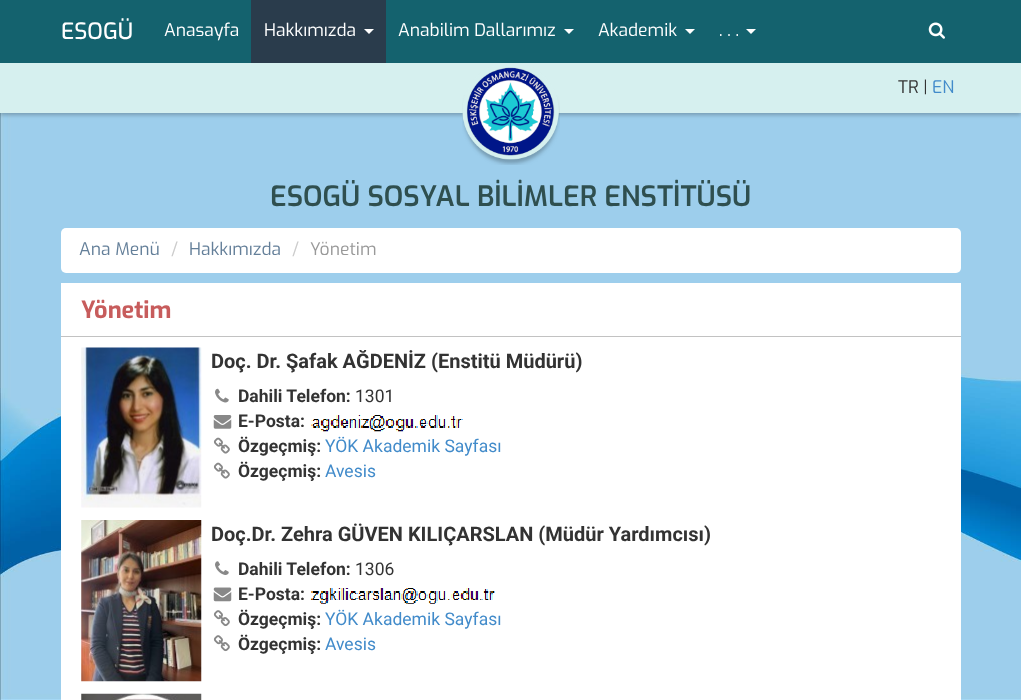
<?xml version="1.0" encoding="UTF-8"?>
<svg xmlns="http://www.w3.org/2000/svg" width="1021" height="700">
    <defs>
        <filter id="blur1" x="-50%" y="-200%" width="200%" height="500%"><feGaussianBlur stdDeviation="2"/></filter>
    </defs>
    <rect width="100%" height="100%" fill="#FFFFFF"/>
    <image x="0" y="113" width="1021" height="587" href="img_15.png"/>
    <rect x="0" y="65" width="1021" height="50" fill="#000000" fill-opacity="0.25" filter="url(#blur1)"/>
    <rect x="0" y="0" width="1021" height="63" fill="#14626E"/>
    <text x="61" y="39" font-family="Exo" font-size="22.5" font-weight="500" fill="#FFFFFF">ESOGÜ</text>
    <text x="164" y="36" font-family="Exo" font-size="17.5" fill="#FFFFFF">Anasayfa</text>
    <rect x="251" y="0" width="135" height="63" fill="#2A3C4C"/>
    <text x="264" y="36" font-family="Exo" font-size="17.5" fill="#FFFFFF">Hakkımızda</text>
    <path d="M 364 29 H 374 L 369 34 Z" fill="#FFFFFF"/>
    <text x="398" y="36" font-family="Exo" font-size="17.5" fill="#FFFFFF">Anabilim Dallarımız</text>
    <path d="M 564 29 H 574 L 569 34 Z" fill="#FFFFFF"/>
    <text x="598" y="36" font-family="Exo" font-size="17.5" fill="#FFFFFF">Akademik</text>
    <path d="M 685 29 H 695 L 690 34 Z" fill="#FFFFFF"/>
    <path d="M 746 29 H 756 L 751 34 Z" fill="#FFFFFF"/>
    <text x="719" y="36" font-family="Exo" font-size="17.5" fill="#FFFFFF">. . .</text>
    <image x="928" y="22" width="17" height="17" href="img_01.png"/>
    <rect x="0" y="63" width="1021" height="50" fill="#D6F0EF"/>
    <image x="462" y="95" width="98" height="70" href="img_03.png"/>
    <image x="462" y="63" width="97" height="97" href="img_02.png"/>
    <text x="898" y="93" font-family="Exo" font-size="17.5" fill="#333333">TR |</text>
    <text x="932" y="93" font-family="Exo" font-size="17.5" fill="#428BCA">EN</text>
    <text x="270" y="206" font-family="Exo" font-size="28" font-weight="600" fill="#2F4F4F">ESOGÜ SOSYAL BİLİMLER ENSTİTÜSÜ</text>
    <rect x="61" y="228" width="900" height="45" rx="5" fill="#FFFFFF"/>
    <text x="79" y="255" font-family="Exo" font-size="17.5" fill="#647F99">Ana Menü</text>
    <text x="171" y="255" font-family="Exo" font-size="17.5" fill="#CCCCCC">/</text>
    <text x="189" y="255" font-family="Exo" font-size="17.5" fill="#647F99">Hakkımızda</text>
    <text x="292" y="255" font-family="Exo" font-size="17.5" fill="#CCCCCC">/</text>
    <text x="310" y="255" font-family="Exo" font-size="17.5" fill="#999999">Yönetim</text>
    <rect x="61" y="283" width="900" height="417" fill="#FFFFFF"/>
    <rect x="61" y="336" width="900" height="1" fill="#C2C2C2"/>
    <text x="81" y="318" font-family="Exo" font-size="23.5" font-weight="700" fill="#C75C5C">Yönetim</text>
    <image x="81" y="347" width="121" height="161" href="img_04.png"/>
    <text x="211" y="368" font-family="Roboto" font-size="20" font-weight="700" fill="#333333">Doç. Dr. Şafak AĞDENİZ (Enstitü Müdürü)</text>
    <image x="215" y="388" width="14" height="15" href="img_05.png"/>
    <text x="238" y="402" font-family="Roboto" font-size="17.5" font-weight="700" fill="#333333">Dahili Telefon:</text>
    <text x="355" y="402" font-family="Roboto" font-size="17.5" fill="#333333">1301</text>
    <image x="213" y="415" width="19" height="14" href="img_06.png"/>
    <text x="238" y="427" font-family="Roboto" font-size="17.5" font-weight="700" fill="#333333">E-Posta:</text>
    <image x="311" y="415" width="152" height="17" href="img_07.png"/>
    <image x="213" y="437" width="17" height="17" href="img_08.png"/>
    <text x="238" y="452" font-family="Roboto" font-size="17.5" font-weight="700" fill="#333333">Özgeçmiş:</text>
    <text x="325" y="452" font-family="Roboto" font-size="17.5" fill="#428BCA">YÖK Akademik Sayfası</text>
    <image x="213" y="462" width="17" height="17" href="img_08.png"/>
    <text x="238" y="477" font-family="Roboto" font-size="17.5" font-weight="700" fill="#333333">Özgeçmiş:</text>
    <text x="325" y="477" font-family="Roboto" font-size="17.5" fill="#428BCA">Avesis</text>
    <image x="81" y="520" width="121" height="162" href="img_09.png"/>
    <text x="211" y="541" font-family="Roboto" font-size="20" font-weight="700" fill="#333333">Doç.Dr. Zehra GÜVEN KILIÇARSLAN (Müdür Yardımcısı)</text>
    <image x="215" y="561" width="14" height="14" href="img_10.png"/>
    <text x="238" y="575" font-family="Roboto" font-size="17.5" font-weight="700" fill="#333333">Dahili Telefon:</text>
    <text x="355" y="575" font-family="Roboto" font-size="17.5" fill="#333333">1306</text>
    <image x="213" y="587" width="19" height="15" href="img_11.png"/>
    <text x="238" y="600" font-family="Roboto" font-size="17.5" font-weight="700" fill="#333333">E-Posta:</text>
    <image x="310" y="588" width="185" height="16" href="img_12.png"/>
    <image x="213" y="610" width="17" height="17" href="img_13.png"/>
    <text x="238" y="625" font-family="Roboto" font-size="17.5" font-weight="700" fill="#333333">Özgeçmiş:</text>
    <text x="325" y="625" font-family="Roboto" font-size="17.5" fill="#428BCA">YÖK Akademik Sayfası</text>
    <image x="213" y="635" width="17" height="17" href="img_13.png"/>
    <text x="238" y="650" font-family="Roboto" font-size="17.5" font-weight="700" fill="#333333">Özgeçmiş:</text>
    <text x="325" y="650" font-family="Roboto" font-size="17.5" fill="#428BCA">Avesis</text>
    <image x="81" y="693" width="121" height="7" href="img_14.png"/>
</svg>
